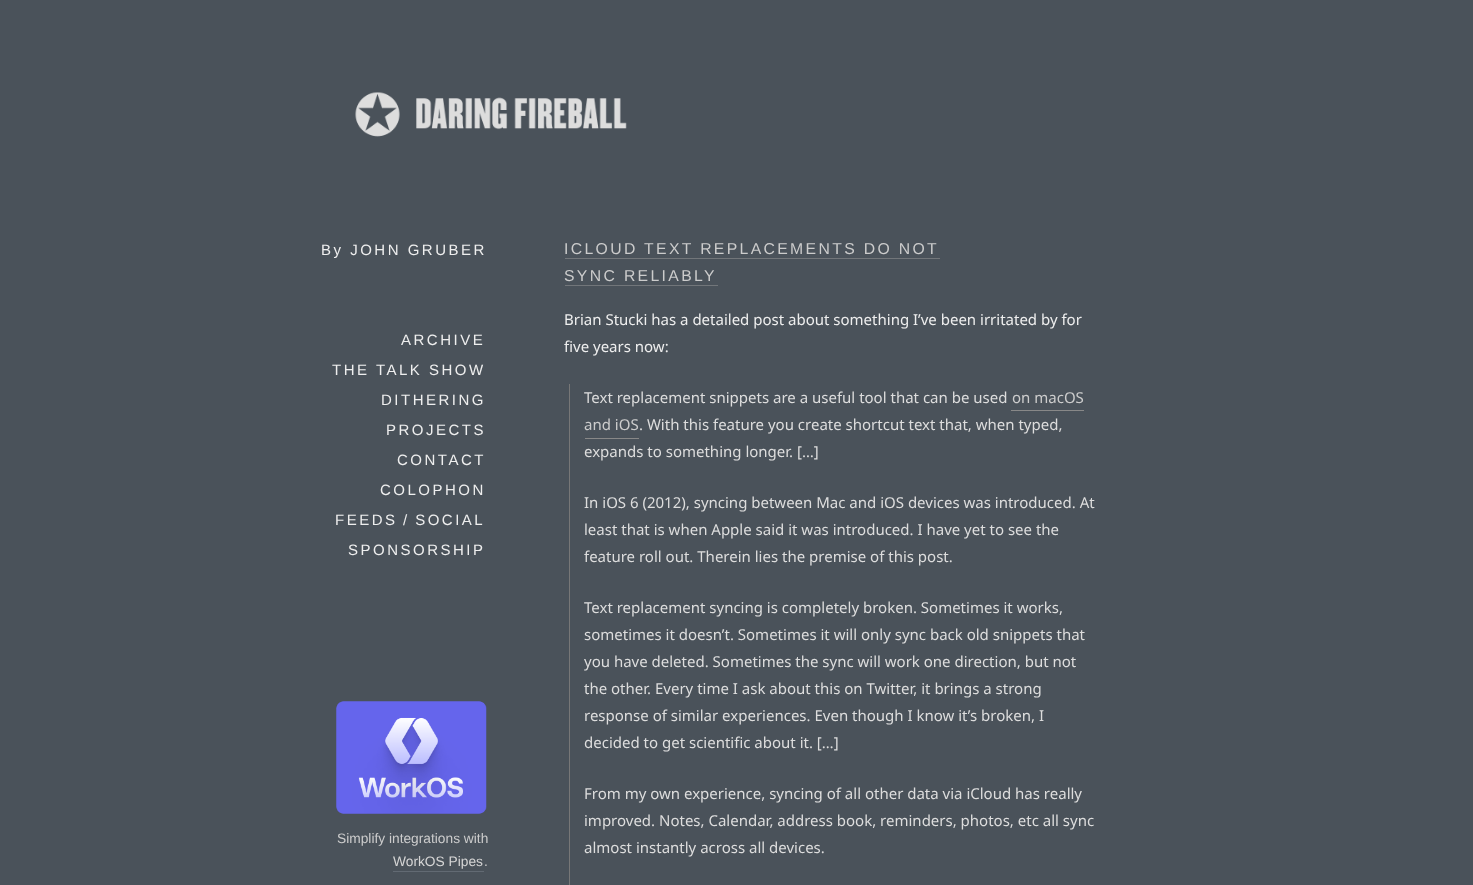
<?xml version="1.0" encoding="UTF-8"?>
<svg xmlns="http://www.w3.org/2000/svg" width="1473" height="885">
    <rect width="100%" height="100%" fill="#4A525A"/>
    <image x="355" y="92" width="272" height="45" href="img_01.png"/>
    <text x="321" y="255" font-family="Liberation Sans" font-size="15" letter-spacing="2.5" fill="#EEEEEE">By JOHN GRUBER</text>
    <text x="401" y="345" font-family="Liberation Sans" font-size="15" letter-spacing="2.5" fill="#EEEEEE">ARCHIVE</text>
    <text x="332" y="375" font-family="Liberation Sans" font-size="15" letter-spacing="2.5" fill="#EEEEEE">THE TALK SHOW</text>
    <text x="381" y="405" font-family="Liberation Sans" font-size="15" letter-spacing="2.5" fill="#EEEEEE">DITHERING</text>
    <text x="386" y="435" font-family="Liberation Sans" font-size="15" letter-spacing="2.5" fill="#EEEEEE">PROJECTS</text>
    <text x="397" y="465" font-family="Liberation Sans" font-size="15" letter-spacing="2.5" fill="#EEEEEE">CONTACT</text>
    <text x="380" y="495" font-family="Liberation Sans" font-size="15" letter-spacing="2.5" fill="#EEEEEE">COLOPHON</text>
    <text x="335" y="525" font-family="Liberation Sans" font-size="15" letter-spacing="2.5" fill="#EEEEEE">FEEDS / SOCIAL</text>
    <text x="348" y="555" font-family="Liberation Sans" font-size="15" letter-spacing="2.5" fill="#EEEEEE">SPONSORSHIP</text>
    <image x="336" y="701" width="151" height="113" href="img_02.png"/>
    <text x="337" y="843" font-family="Liberation Sans" font-size="13.75" fill="#CCCCCC">Simplify integrations with</text>
    <text x="393" y="866" font-family="Liberation Sans" font-size="13.75" fill="#D5D5D5">WorkOS Pipes</text>
    <rect x="393" y="871" width="91" height="1" fill="#626A73"/>
    <text x="484" y="866" font-family="Liberation Sans" font-size="13.75" fill="#CCCCCC">.</text>
    <text x="564" y="254" font-family="Liberation Sans" font-size="15.75" letter-spacing="2.35" fill="#CCCCCC">ICLOUD TEXT REPLACEMENTS DO NOT</text>
    <rect x="565" y="258" width="375" height="1" fill="#72767A"/>
    <text x="564" y="281" font-family="Liberation Sans" font-size="15.75" letter-spacing="2.35" fill="#CCCCCC">SYNC RELIABLY</text>
    <rect x="565" y="285" width="153" height="1" fill="#72767A"/>
    <text font-family="Noto Sans" font-size="15" fill="#EEEEEE">
        <tspan x="564" y="325">Brian Stucki has a detailed post about something I’ve been irritated by for</tspan>
        <tspan x="564" y="352">five years now:</tspan>
    </text>
    <rect x="569" y="384" width="1" height="501" fill="#777777"/>
    <text x="584" y="403" font-family="Noto Sans" font-size="15" fill="#DDDDDD">Text replacement snippets are a useful tool that can be used</text>
    <text x="1012" y="403" font-family="Noto Sans" font-size="15" fill="#CCCCCC">on macOS</text>
    <rect x="1011" y="410" width="73" height="1" fill="#888888"/>
    <text x="584" y="430" font-family="Noto Sans" font-size="15" fill="#CCCCCC">and iOS</text>
    <rect x="585" y="438" width="54" height="1" fill="#888888"/>
    <text x="639" y="430" font-family="Noto Sans" font-size="15" fill="#DDDDDD">. With this feature you create shortcut text that, when typed,</text>
    <text x="584" y="457" font-family="Noto Sans" font-size="15" fill="#DDDDDD">expands to something longer. […]</text>
    <text font-family="Noto Sans" font-size="15" fill="#DDDDDD">
        <tspan x="584" y="508">In iOS 6 (2012), syncing between Mac and iOS devices was introduced. At</tspan>
        <tspan x="584" y="535">least that is when Apple said it was introduced. I have yet to see the</tspan>
        <tspan x="584" y="562">feature roll out. Therein lies the premise of this post.</tspan>
    </text>
    <text font-family="Noto Sans" font-size="15" fill="#DDDDDD">
        <tspan x="584" y="613">Text replacement syncing is completely broken. Sometimes it works,</tspan>
        <tspan x="584" y="640">sometimes it doesn’t. Sometimes it will only sync back old snippets that</tspan>
        <tspan x="584" y="667">you have deleted. Sometimes the sync will work one direction, but not</tspan>
        <tspan x="584" y="694">the other. Every time I ask about this on Twitter, it brings a strong</tspan>
        <tspan x="584" y="721">response of similar experiences. Even though I know it’s broken, I</tspan>
        <tspan x="584" y="748">decided to get scientific about it. […]</tspan>
    </text>
    <text font-family="Noto Sans" font-size="15" fill="#DDDDDD">
        <tspan x="584" y="799">From my own experience, syncing of all other data via iCloud has really</tspan>
        <tspan x="584" y="826">improved. Notes, Calendar, address book, reminders, photos, etc all sync</tspan>
        <tspan x="584" y="853">almost instantly across all devices.</tspan>
    </text>
</svg>
